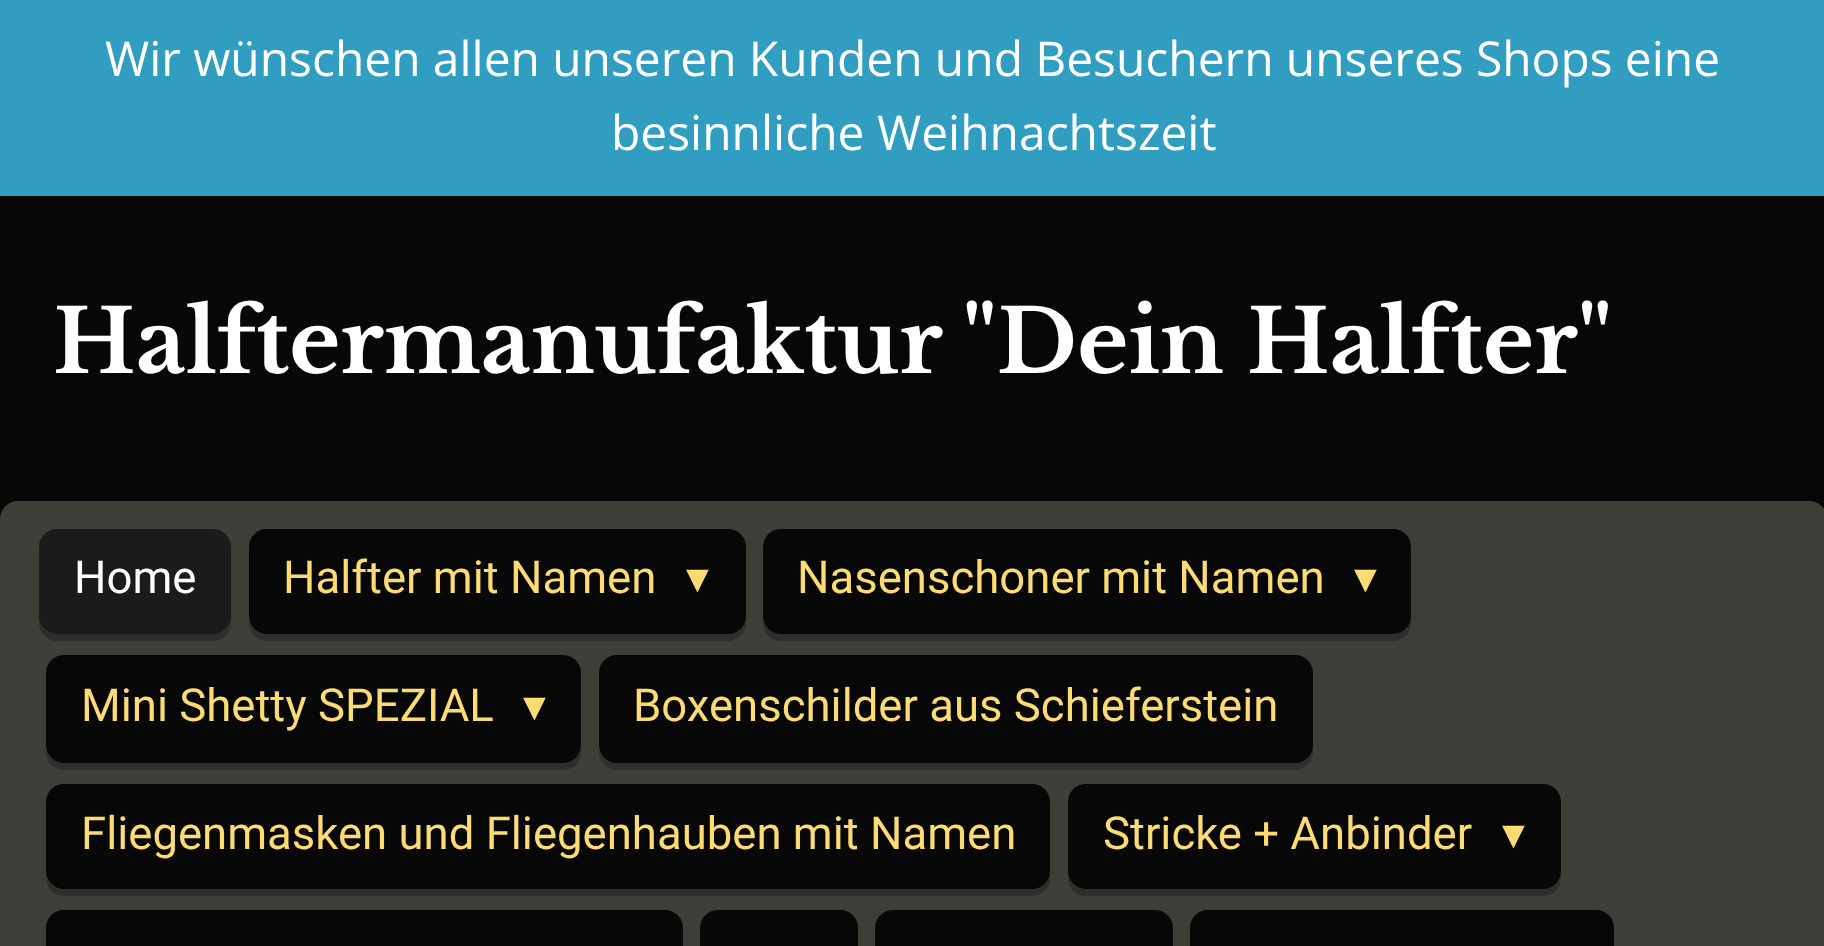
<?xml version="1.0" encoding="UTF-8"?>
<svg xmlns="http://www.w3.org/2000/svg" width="1824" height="946">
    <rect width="100%" height="100%" fill="#070707"/>
    <rect x="0" y="0" width="1824" height="196" fill="#319EC1"/>
    <text x="105" y="76" word-spacing="-0.25" font-family="Open Sans" font-size="47.95" fill="#FFFFFF">Wir wünschen allen unseren Kunden und Besuchern unseres Shops eine</text>
    <text x="611" y="150" font-family="Open Sans" font-size="47.95" fill="#FFFFFF">besinnliche Weihnachtszeit</text>
    <text x="53" y="373" font-family="Libre Baskerville" font-size="87.5" font-weight="700" fill="#FFFFFF">Halftermanufaktur "Dein Halfter"</text>
    <rect x="0" y="501" width="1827" height="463" rx="18" fill="#3E3D38"/>
    <path d="M 39 620 V 623 C 39 633 47 641 57 641 H 213 C 223 641 231 633 231 623 V 616 C 231 626 223 634 214 634 H 56 C 48 634 41 628 39 620 Z" fill="#2F2E2A"/>
    <rect x="39" y="529" width="192" height="105" rx="18" fill="#1B1B1B"/>
    <text x="74" y="593" font-family="Roboto" font-size="45.5" fill="#FFFFFF">Home</text>
    <path d="M 249 620 V 623 C 249 633 257 641 267 641 H 728 C 738 641 746 633 746 623 V 554 V 550 V 616 C 746 626 738 634 728 634 H 266 C 258 634 251 628 249 620 Z" fill="#2F2E2A"/>
    <rect x="249" y="529" width="497" height="105" rx="18" fill="#070707"/>
    <text x="283" y="593" font-family="Roboto" font-size="45.5" fill="#FBDB72">Halfter mit Namen</text>
    <text x="686" y="593" font-family="DejaVu Sans" font-size="45.5" fill="#FBDB72">▾</text>
    <path d="M 763 616 V 623 C 763 633 771 641 781 641 H 1393 C 1403 641 1411 633 1411 623 V 554 L 1410 550 V 616 C 1410 626 1403 634 1393 634 H 780 C 771 634 763 626 763 616 Z" fill="#2F2E2A"/>
    <rect x="763" y="529" width="648" height="105" rx="18" fill="#070707"/>
    <text x="797" y="593" font-family="Roboto" font-size="45.5" fill="#FBDB72">Nasenschoner mit Namen</text>
    <text x="1354" y="593" font-family="DejaVu Sans" font-size="45.5" fill="#FBDB72">▾</text>
    <path d="M 46 750 V 752 C 46 762 54 770 64 770 H 563 C 573 770 581 762 581 752 V 746 C 581 755 573 763 564 763 H 63 C 55 763 48 757 46 750 Z" fill="#2F2E2A"/>
    <rect x="46" y="655" width="535" height="108" rx="18" fill="#070707"/>
    <text x="81" y="721" font-family="Roboto" font-size="45.5" fill="#FBDB72">Mini Shetty SPEZIAL</text>
    <text x="523" y="721" font-family="DejaVu Sans" font-size="45.5" fill="#FBDB72">▾</text>
    <path d="M 599 750 V 752 C 599 762 607 770 617 770 H 1295 C 1305 770 1313 762 1313 752 V 680 L 1312 676 V 746 C 1312 755 1305 763 1295 763 H 616 C 608 763 601 757 599 750 Z" fill="#2F2E2A"/>
    <rect x="599" y="655" width="714" height="108" rx="18" fill="#070707"/>
    <text x="633" y="721" font-family="Roboto" font-size="45.5" fill="#FBDB72">Boxenschilder aus Schieferstein</text>
    <path d="M 46 876 C 46 887 52 896 64 896 H 1032 C 1040 896 1048 890 1050 882 V 872 C 1050 881 1042 889 1032 889 H 63 C 55 889 48 883 46 876 Z" fill="#2F2E2A"/>
    <rect x="46" y="784" width="1004" height="105" rx="18" fill="#070707"/>
    <text x="81" y="849" font-family="Roboto" font-size="45.5" fill="#FBDB72">Fliegenmasken und Fliegenhauben mit Namen</text>
    <path d="M 1068 876 V 878 C 1068 888 1076 896 1086 896 H 1543 C 1553 896 1561 888 1561 878 V 872 C 1561 881 1553 889 1544 889 H 1085 C 1077 889 1070 883 1068 876 Z" fill="#2F2E2A"/>
    <rect x="1068" y="784" width="493" height="105" rx="18" fill="#070707"/>
    <text x="1103" y="849" font-family="Roboto" font-size="45.5" fill="#FBDB72">Stricke + Anbinder</text>
    <text x="1502" y="849" font-family="DejaVu Sans" font-size="45.5" fill="#FBDB72">▾</text>
    <rect x="46" y="910" width="637" height="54" rx="18" fill="#070707"/>
    <rect x="700" y="910" width="158" height="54" rx="18" fill="#070707"/>
    <rect x="875" y="910" width="298" height="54" rx="18" fill="#070707"/>
    <rect x="1190" y="910" width="424" height="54" rx="18" fill="#070707"/>
</svg>
